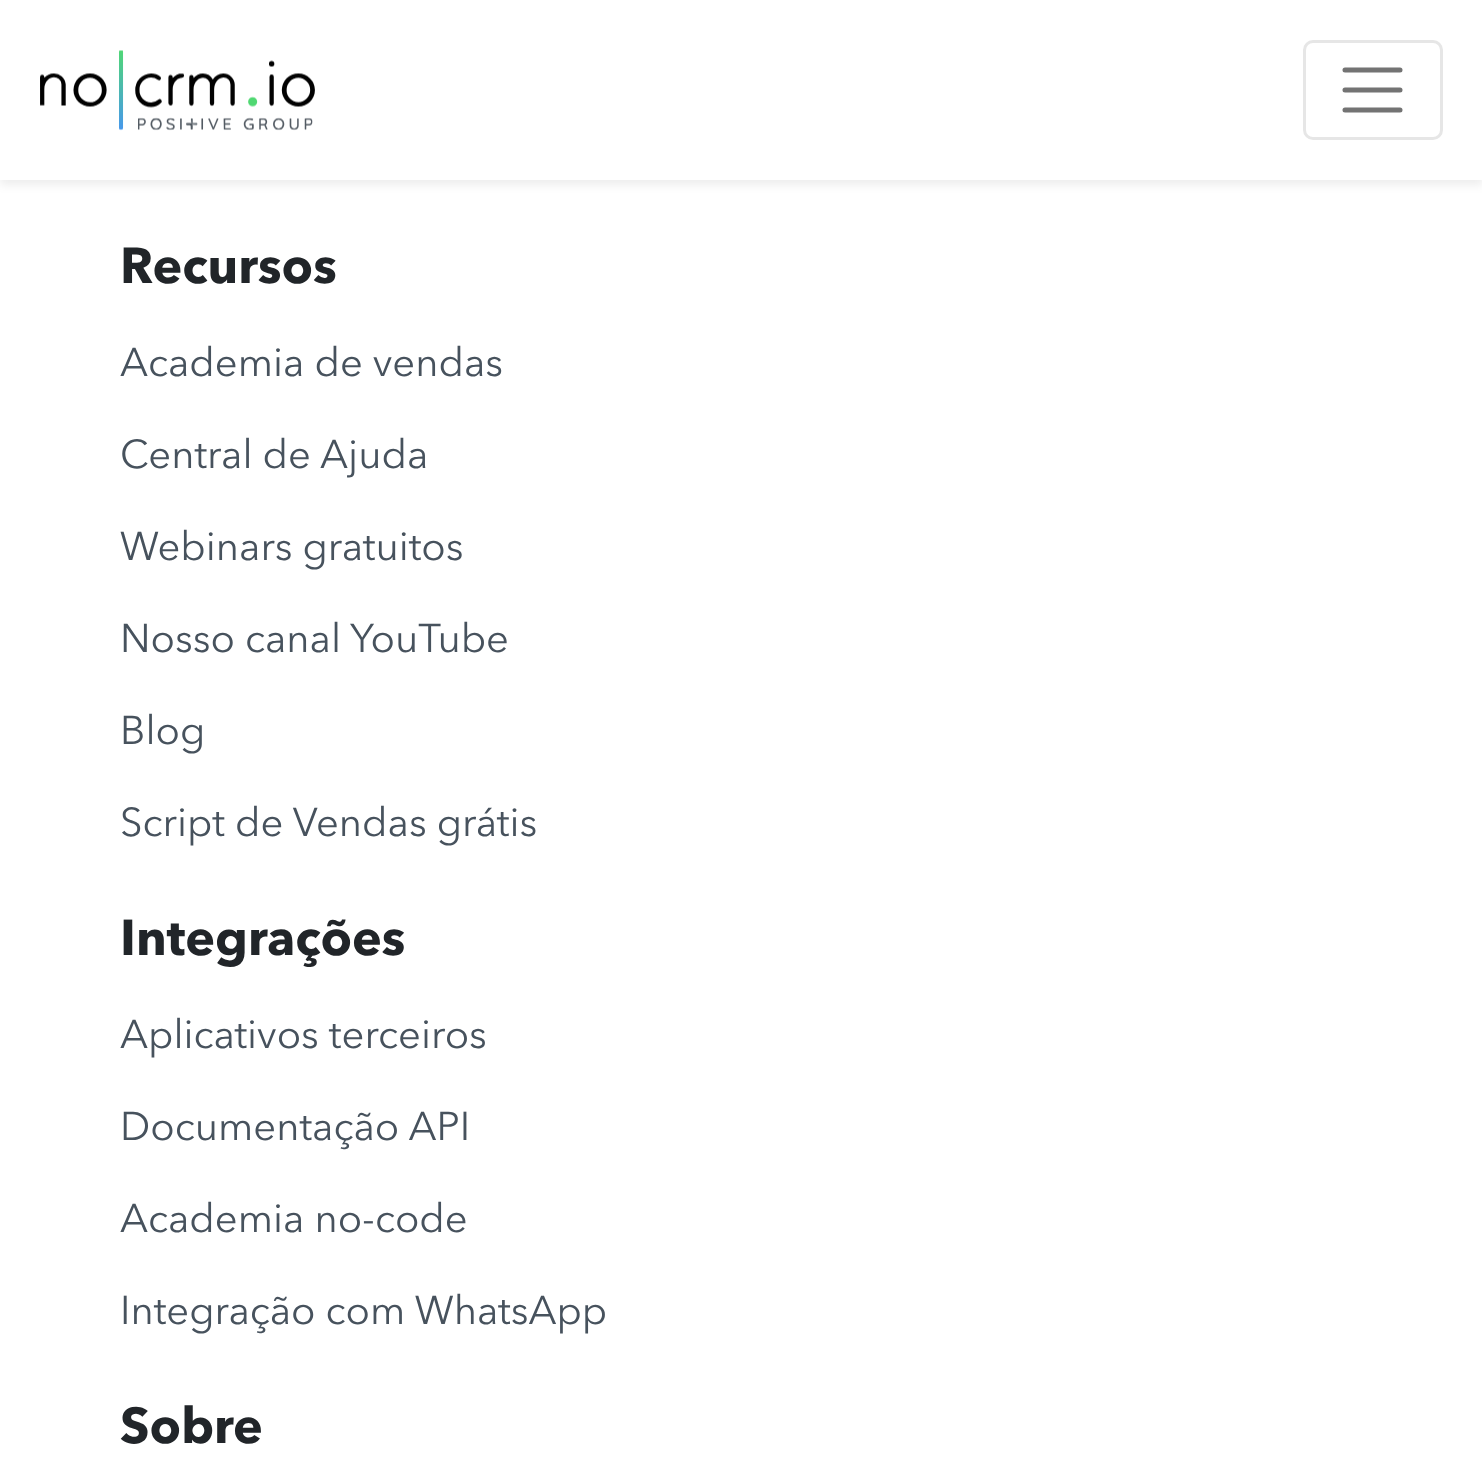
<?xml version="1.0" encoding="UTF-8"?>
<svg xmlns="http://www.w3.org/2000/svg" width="1482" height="1482">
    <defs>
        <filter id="blur1" x="-50%" y="-200%" width="200%" height="500%"><feGaussianBlur stdDeviation="5"/></filter>
    </defs>
    <rect width="100%" height="100%" fill="#FFFFFF"/>
    <rect x="0" y="5" width="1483" height="180" fill="#000000" fill-opacity="0.07" filter="url(#blur1)"/>
    <rect x="0" y="0" width="1482" height="180" fill="#FFFFFF"/>
    <image x="40" y="50" width="275" height="81" href="img_01.png"/>
    <rect x="1304.5" y="41.5" width="137" height="97" rx="8.5" fill="none" stroke="#E6E6E6" stroke-width="3"/>
    <path d="M 1345 70 H 1400 M 1345 90 H 1400 M 1345 110 H 1400" fill="none" stroke="#737373" stroke-width="5" stroke-linecap="round"/>
    <text x="120" y="283" font-family="Avenir Next" font-size="50" font-weight="700" fill="#212529">Recursos</text>
    <text x="120" y="376" font-family="Avenir Next" font-size="40" fill="#47525D">Academia de vendas</text>
    <text x="120" y="468" font-family="Avenir Next" font-size="40" fill="#47525D">Central de Ajuda</text>
    <text x="120" y="560" font-family="Avenir Next" font-size="40" fill="#47525D">Webinars gratuitos</text>
    <text x="120" y="652" font-family="Avenir Next" font-size="40" fill="#47525D">Nosso canal YouTube</text>
    <text x="120" y="744" font-family="Avenir Next" font-size="40" fill="#47525D">Blog</text>
    <text x="120" y="836" font-family="Avenir Next" font-size="40" fill="#47525D">Script de Vendas grátis</text>
    <text x="120" y="955" font-family="Avenir Next" font-size="50" font-weight="700" fill="#212529">Integrações</text>
    <text x="120" y="1048" font-family="Avenir Next" font-size="40" fill="#47525D">Aplicativos terceiros</text>
    <text x="120" y="1140" font-family="Avenir Next" font-size="40" fill="#47525D">Documentação API</text>
    <text x="120" y="1232" font-family="Avenir Next" font-size="40" fill="#47525D">Academia no-code</text>
    <text x="120" y="1324" font-family="Avenir Next" font-size="40" fill="#47525D">Integração com WhatsApp</text>
    <text x="120" y="1443" font-family="Avenir Next" font-size="50" font-weight="700" fill="#212529">Sobre</text>
</svg>
